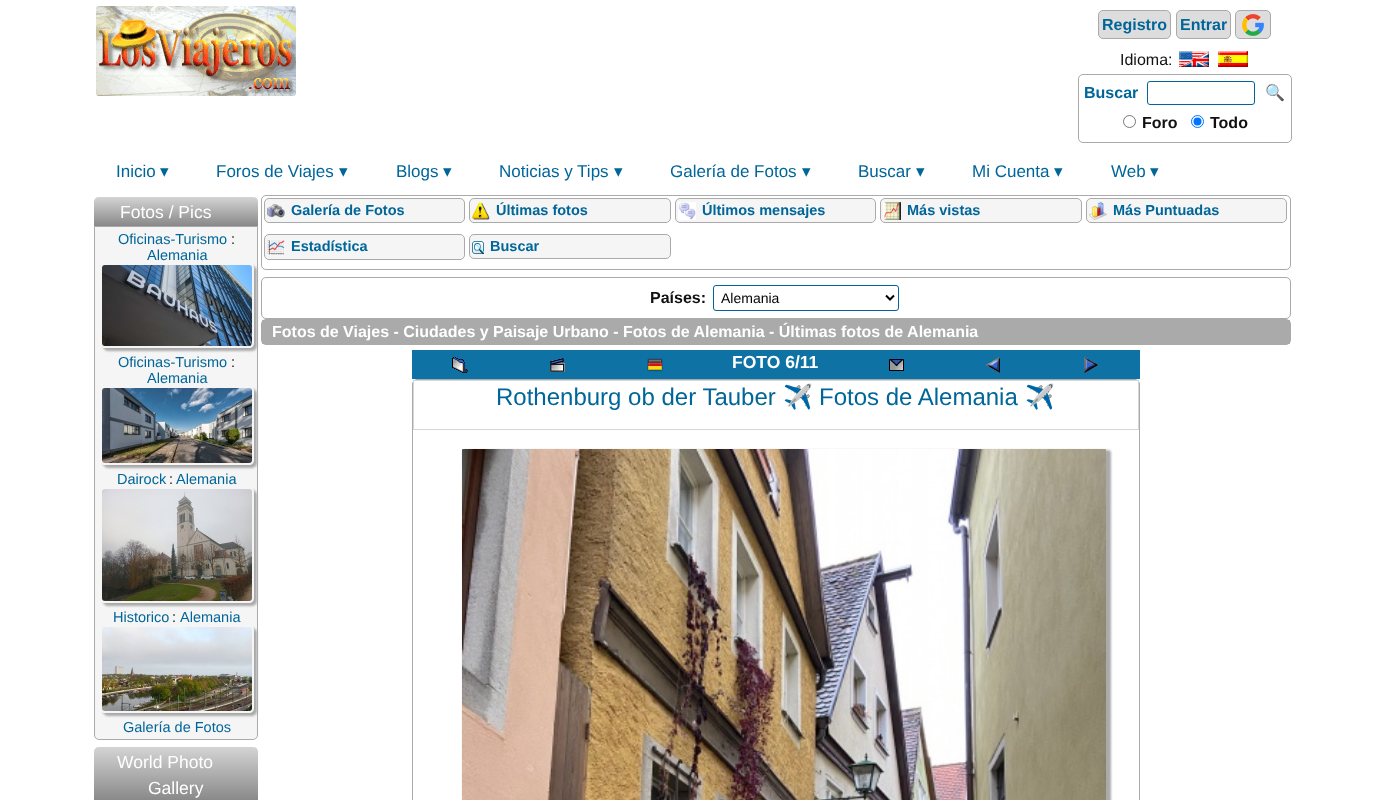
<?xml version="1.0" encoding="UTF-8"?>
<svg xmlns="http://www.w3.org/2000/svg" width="1381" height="800">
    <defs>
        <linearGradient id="g1" gradientUnits="userSpaceOnUse" x1="176" y1="197" x2="176" y2="226"><stop offset="0" stop-color="#D5D4D4"/><stop offset="1" stop-color="#888888"/></linearGradient>
        <clipPath id="clip1"><path d="M 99 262 H 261 V 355 H 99 Z M 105 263 H 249 C 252 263 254 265 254 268 V 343 C 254 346 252 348 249 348 H 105 C 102 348 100 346 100 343 V 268 C 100 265 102 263 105 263 Z" clip-rule="evenodd"/></clipPath>
        <filter id="blur1" x="-50%" y="-200%" width="200%" height="500%"><feGaussianBlur stdDeviation="1"/></filter>
        <clipPath id="clip2"><path d="M 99 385 H 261 V 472 H 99 Z M 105 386 H 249 C 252 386 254 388 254 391 V 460 C 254 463 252 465 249 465 H 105 C 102 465 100 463 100 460 V 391 C 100 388 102 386 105 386 Z" clip-rule="evenodd"/></clipPath>
        <clipPath id="clip3"><path d="M 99 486 H 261 V 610 H 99 Z M 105 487 H 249 C 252 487 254 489 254 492 V 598 C 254 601 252 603 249 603 H 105 C 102 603 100 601 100 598 V 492 C 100 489 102 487 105 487 Z" clip-rule="evenodd"/></clipPath>
        <clipPath id="clip4"><path d="M 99 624 H 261 V 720 H 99 Z M 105 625 H 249 C 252 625 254 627 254 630 V 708 C 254 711 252 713 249 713 H 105 C 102 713 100 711 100 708 V 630 C 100 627 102 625 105 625 Z" clip-rule="evenodd"/></clipPath>
        <linearGradient id="g2" gradientUnits="userSpaceOnUse" x1="176" y1="747" x2="176" y2="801"><stop offset="0" stop-color="#D5D4D4"/><stop offset="1" stop-color="#888888"/></linearGradient>
    </defs>
    <rect width="100%" height="100%" fill="#FFFFFF"/>
    <image x="96" y="6" width="200" height="90" href="img_01.png"/>
    <rect x="1235.5" y="10.5" width="35" height="28" rx="4.5" fill="#DDDDDD" stroke="#AAAAAA"/>
    <rect x="1098.5" y="10.5" width="72" height="28" rx="4.5" fill="#DDDDDD" stroke="#AAAAAA"/>
    <text x="1102" y="30" font-family="Liberation Sans" font-size="16" font-weight="700" fill="#006699">Registro</text>
    <rect x="1176.5" y="10.5" width="54" height="28" rx="4.5" fill="#DDDDDD" stroke="#AAAAAA"/>
    <text x="1180" y="30" font-family="Liberation Sans" font-size="16" font-weight="700" fill="#006699">Entrar</text>
    <image x="1242" y="14" width="22" height="22" href="img_02.png"/>
    <text x="1120" y="65" font-family="Liberation Sans" font-size="16" fill="#111111">Idioma:</text>
    <image x="1179" y="51" width="30" height="16" href="img_03.png"/>
    <image x="1218" y="51" width="30" height="16" href="img_04.png"/>
    <rect x="1078.5" y="74.5" width="213" height="68" rx="4.5" fill="none" stroke="#AAAAAA"/>
    <text x="1084" y="98" font-family="Liberation Sans" font-size="16" font-weight="700" fill="#006699">Buscar</text>
    <rect x="1147.5" y="81.5" width="107" height="23" rx="2.5" fill="none" stroke="#006699"/>
    <text x="1265" y="98" font-family="Noto Color Emoji" font-size="16" fill="#006699">🔍</text>
    <circle cx="1129.5" cy="121.5" r="6" fill="none" stroke="#767676"/>
    <text x="1142" y="128" font-family="Liberation Sans" font-size="16" font-weight="700" fill="#111111">Foro</text>
    <circle cx="1197.5" cy="121.5" r="6" fill="none" stroke="#0075FF"/>
    <circle cx="1197.5" cy="121.5" r="4" fill="#0075FF"/>
    <text x="1210" y="128" font-family="Liberation Sans" font-size="16" font-weight="700" fill="#111111">Todo</text>
    <text x="116" y="177" font-family="Liberation Sans" font-size="17" fill="#006699">Inicio</text>
    <text x="160" y="177" font-family="DejaVu Sans" font-size="17" fill="#006699">▾</text>
    <text x="216" y="177" font-family="Liberation Sans" font-size="17" fill="#006699">Foros de Viajes</text>
    <text x="339" y="177" font-family="DejaVu Sans" font-size="17" fill="#006699">▾</text>
    <text x="396" y="177" font-family="Liberation Sans" font-size="17" fill="#006699">Blogs</text>
    <text x="443" y="177" font-family="DejaVu Sans" font-size="17" fill="#006699">▾</text>
    <text x="499" y="177" font-family="Liberation Sans" font-size="17" fill="#006699">Noticias y Tips</text>
    <text x="614" y="177" font-family="DejaVu Sans" font-size="17" fill="#006699">▾</text>
    <text x="670" y="177" font-family="Liberation Sans" font-size="17" fill="#006699">Galería de Fotos</text>
    <text x="802" y="177" font-family="DejaVu Sans" font-size="17" fill="#006699">▾</text>
    <text x="858" y="177" font-family="Liberation Sans" font-size="17" fill="#006699">Buscar</text>
    <text x="916" y="177" font-family="DejaVu Sans" font-size="17" fill="#006699">▾</text>
    <text x="972" y="177" font-family="Liberation Sans" font-size="17" fill="#006699">Mi Cuenta</text>
    <text x="1054" y="177" font-family="DejaVu Sans" font-size="17" fill="#006699">▾</text>
    <text x="1111" y="177" font-family="Liberation Sans" font-size="17" fill="#006699">Web</text>
    <text x="1150" y="177" font-family="DejaVu Sans" font-size="17" fill="#006699">▾</text>
    <path d="M 99 197 H 253 C 256 197 258 199 258 202 V 226 H 94 V 202 C 94 199 96 197 99 197 Z" fill="url(#g1)"/>
    <text x="120" y="218" font-family="Liberation Sans" font-size="17.5" fill="#FFFFFF">Fotos / Pics</text>
    <path d="M 94.5 226.5 H 257.5 V 735 C 257.5 737.5 255.5 739.5 253 739.5 H 99 C 96.5 739.5 94.5 737.5 94.5 735 Z" fill="#F5F5F5" stroke="#AAAAAA"/>
    <text x="118" y="244" font-family="Liberation Sans" font-size="14.5" fill="#006699">Oficinas-Turismo</text>
    <text x="231" y="244" font-family="Liberation Sans" font-size="14.5" fill="#111111">:</text>
    <text x="147" y="260" font-family="Liberation Sans" font-size="14.5" fill="#006699">Alemania</text>
    <g clip-path="url(#clip1)">
        <rect x="103" y="266" width="154" height="85" rx="5" fill="#AAAAAA" filter="url(#blur1)"/>
    </g>
    <image x="102" y="265" width="150" height="81" href="img_05.png"/>
    <text x="118" y="367" font-family="Liberation Sans" font-size="14.5" fill="#006699">Oficinas-Turismo</text>
    <text x="231" y="367" font-family="Liberation Sans" font-size="14.5" fill="#111111">:</text>
    <text x="147" y="383" font-family="Liberation Sans" font-size="14.5" fill="#006699">Alemania</text>
    <g clip-path="url(#clip2)">
        <rect x="103" y="389" width="154" height="79" rx="5" fill="#AAAAAA" filter="url(#blur1)"/>
    </g>
    <image x="102" y="388" width="150" height="75" href="img_06.png"/>
    <text x="117" y="484" font-family="Liberation Sans" font-size="14.5" fill="#006699">Dairock</text>
    <text x="169" y="484" font-family="Liberation Sans" font-size="14.5" fill="#111111">:</text>
    <text x="176" y="484" font-family="Liberation Sans" font-size="14.5" fill="#006699">Alemania</text>
    <g clip-path="url(#clip3)">
        <rect x="103" y="490" width="154" height="116" rx="5" fill="#AAAAAA" filter="url(#blur1)"/>
    </g>
    <image x="102" y="489" width="150" height="112" href="img_07.png"/>
    <text x="113" y="622" font-family="Liberation Sans" font-size="14.5" fill="#006699">Historico</text>
    <text x="172" y="622" font-family="Liberation Sans" font-size="14.5" fill="#111111">:</text>
    <text x="180" y="622" font-family="Liberation Sans" font-size="14.5" fill="#006699">Alemania</text>
    <g clip-path="url(#clip4)">
        <rect x="103" y="628" width="154" height="88" rx="5" fill="#AAAAAA" filter="url(#blur1)"/>
    </g>
    <image x="102" y="627" width="150" height="84" href="img_08.png"/>
    <text x="123" y="732" font-family="Liberation Sans" font-size="14.5" fill="#006699">Galería de Fotos</text>
    <path d="M 99 747 H 253 C 256 747 258 749 258 752 V 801 H 94 V 752 C 94 749 96 747 99 747 Z" fill="url(#g2)"/>
    <text x="117" y="768" font-family="Liberation Sans" font-size="17.5" fill="#FFFFFF">World Photo</text>
    <text x="148" y="794" font-family="Liberation Sans" font-size="17.5" fill="#FFFFFF">Gallery</text>
    <rect x="261.5" y="195.5" width="1029" height="74" rx="4.5" fill="none" stroke="#AAAAAA"/>
    <rect x="264.5" y="198.5" width="200" height="24" rx="4.5" fill="#F5F5F5" stroke="#AAAAAA"/>
    <image x="267" y="204" width="18" height="14" href="img_09.png"/>
    <text x="291" y="215" font-family="Liberation Sans" font-size="14.5" font-weight="700" fill="#006699">Galería de Fotos</text>
    <rect x="469.5" y="198.5" width="201" height="24" rx="4.5" fill="#F5F5F5" stroke="#AAAAAA"/>
    <image x="472" y="202" width="18" height="18" href="img_10.png"/>
    <text x="496" y="215" font-family="Liberation Sans" font-size="14.5" font-weight="700" fill="#006699">Últimas fotos</text>
    <rect x="675.5" y="198.5" width="200" height="24" rx="4.5" fill="#F5F5F5" stroke="#AAAAAA"/>
    <image x="678" y="202" width="18" height="18" href="img_11.png"/>
    <text x="702" y="215" font-family="Liberation Sans" font-size="14.5" font-weight="700" fill="#006699">Últimos mensajes</text>
    <rect x="880.5" y="198.5" width="201" height="24" rx="4.5" fill="#F5F5F5" stroke="#AAAAAA"/>
    <image x="883" y="202" width="18" height="18" href="img_12.png"/>
    <text x="907" y="215" font-family="Liberation Sans" font-size="14.5" font-weight="700" fill="#006699">Más vistas</text>
    <rect x="1086.5" y="198.5" width="200" height="24" rx="4.5" fill="#F5F5F5" stroke="#AAAAAA"/>
    <image x="1089" y="202" width="18" height="18" href="img_13.png"/>
    <text x="1113" y="215" font-family="Liberation Sans" font-size="14.5" font-weight="700" fill="#006699">Más Puntuadas</text>
    <rect x="264.5" y="234.5" width="200" height="25" rx="4.5" fill="#F5F5F5" stroke="#AAAAAA"/>
    <image x="267" y="240" width="18" height="15" href="img_14.png"/>
    <text x="291" y="251" font-family="Liberation Sans" font-size="14.5" font-weight="700" fill="#006699">Estadística</text>
    <rect x="469.5" y="234.5" width="201" height="24" rx="4.5" fill="#F5F5F5" stroke="#AAAAAA"/>
    <image x="472" y="241" width="12" height="13" href="img_15.png"/>
    <text x="490" y="251" font-family="Liberation Sans" font-size="14.5" font-weight="700" fill="#006699">Buscar</text>
    <rect x="261.5" y="277.5" width="1029" height="41" rx="4.5" fill="none" stroke="#AAAAAA"/>
    <text x="650" y="303" font-family="Liberation Sans" font-size="16" font-weight="700" fill="#111111">Países:</text>
    <rect x="713.5" y="285.5" width="185" height="25" rx="2.5" fill="none" stroke="#006699"/>
    <path d="M 886 295.5 L 890 299.5 L 894 295.5" fill="none" stroke="#000000" stroke-width="2"/>
    <text x="721" y="303" font-family="Liberation Sans" font-size="14" fill="#000000">Alemania</text>
    <rect x="261.5" y="319.5" width="1029" height="25" rx="4.5" fill="none" stroke="#AAAAAA"/>
    <rect x="262" y="320" width="1028" height="24" fill="#AAAAAA"/>
    <text x="272" y="337" font-family="Liberation Sans" font-size="16" font-weight="700" fill="#FFFFFF">Fotos de Viajes - Ciudades y Paisaje Urbano - Fotos de Alemania - Últimas fotos de Alemania</text>
    <rect x="412" y="350" width="728" height="29" fill="#0E72A4"/>
    <image x="452" y="357" width="16" height="16" href="img_16.png"/>
    <image x="550" y="358" width="15" height="14" href="img_17.png"/>
    <image x="647" y="358" width="16" height="14" href="img_18.png"/>
    <text x="732" y="368" font-family="Liberation Sans" font-size="17.5" font-weight="700" fill="#FFFFFF">FOTO 6/11</text>
    <image x="889" y="359" width="15" height="12" href="img_19.png"/>
    <image x="986" y="357" width="14" height="16" href="img_20.png"/>
    <image x="1084" y="357" width="14" height="16" href="img_21.png"/>
    <rect x="412.5" y="379.5" width="727" height="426" rx="4.5" fill="none" stroke="#AAAAAA"/>
    <rect x="413.5" y="380.5" width="725" height="49" fill="none" stroke="#D1D7DC"/>
    <text x="496" y="405" font-family="Liberation Sans" font-size="24" fill="#006699">Rothenburg ob der Tauber</text>
    <text x="783" y="405" font-family="Noto Color Emoji" font-size="24" fill="#006699">✈️</text>
    <text x="819" y="405" font-family="Liberation Sans" font-size="24" fill="#006699">Fotos de Alemania</text>
    <text x="1025" y="405" font-family="Noto Color Emoji" font-size="24" fill="#006699">✈️</text>
    <rect x="463" y="450" width="648" height="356" rx="3" fill="#AAAAAA" filter="url(#blur1)"/>
    <image x="462" y="449" width="644" height="351" href="img_22.png"/>
</svg>
